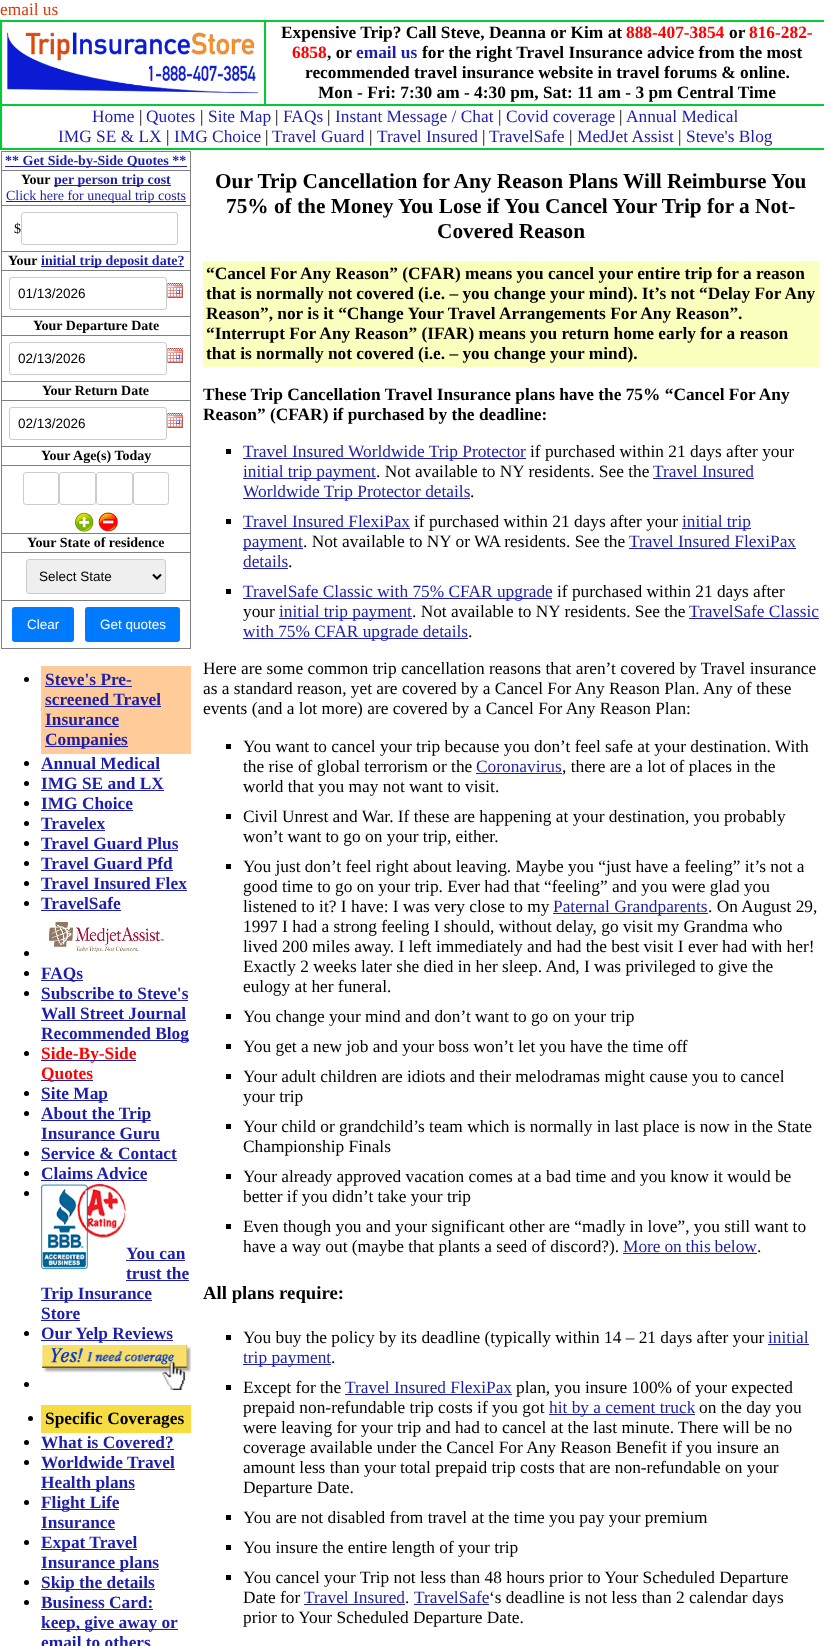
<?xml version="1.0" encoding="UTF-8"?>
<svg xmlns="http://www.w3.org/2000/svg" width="824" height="1646">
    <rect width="100%" height="100%" fill="#FFFFFF"/>
    <text x="0" y="15" font-family="Liberation Serif" font-size="17.35" fill="#D93B0C">email us</text>
    <rect x="0.5" y="20.5" width="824" height="129" fill="none" stroke="#00CC33"/>
    <rect x="1.5" y="21.5" width="263" height="83" fill="none" stroke="#00CC33"/>
    <image x="7" y="32" width="252" height="62" href="img_01.png"/>
    <rect x="265.5" y="21.5" width="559" height="83" fill="none" stroke="#00CC33"/>
    <text x="281" y="38" font-family="Liberation Serif" font-size="17.35" font-weight="700" fill="#000000">Expensive Trip? Call Steve, Deanna or Kim at</text>
    <text x="626" y="38" font-family="Liberation Serif" font-size="17.35" font-weight="700" fill="#FF0000">888-407-3854</text>
    <text x="729" y="38" font-family="Liberation Serif" font-size="17.35" font-weight="700" fill="#000000">or</text>
    <text x="749" y="38" font-family="Liberation Serif" font-size="17.35" font-weight="700" fill="#FF0000">816-282-</text>
    <text x="292" y="58" font-family="Liberation Serif" font-size="17.35" font-weight="700" fill="#FF0000">6858</text>
    <text x="327" y="58" font-family="Liberation Serif" font-size="17.35" font-weight="700" fill="#000000">, or</text>
    <text x="356" y="58" font-family="Liberation Serif" font-size="17.35" font-weight="700" fill="#1D1FAB">email us</text>
    <text x="422" y="58" font-family="Liberation Serif" font-size="17.35" font-weight="700" fill="#000000">for the right Travel Insurance advice from the most</text>
    <text x="305" y="78" font-family="Liberation Serif" font-size="17.35" font-weight="700" fill="#000000">recommended travel insurance website in travel forums &amp; online.</text>
    <text x="318" y="98" font-family="Liberation Serif" font-size="17.35" font-weight="700" fill="#000000">Mon - Fri: 7:30 am - 4:30 pm, Sat: 11 am - 3 pm Central Time</text>
    <rect x="1.5" y="105.5" width="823" height="43" fill="none" stroke="#00CC33"/>
    <text x="92" y="122" font-family="Liberation Serif" font-size="17.35" fill="#1D1FAB">Home</text>
    <text x="139" y="122" font-family="Liberation Serif" font-size="17.35" fill="#000000">|</text>
    <text x="146" y="122" font-family="Liberation Serif" font-size="17.35" fill="#1D1FAB">Quotes</text>
    <text x="200" y="122" font-family="Liberation Serif" font-size="17.35" fill="#000000">|</text>
    <text x="208" y="122" font-family="Liberation Serif" font-size="17.35" fill="#1D1FAB">Site Map</text>
    <text x="275" y="122" font-family="Liberation Serif" font-size="17.35" fill="#000000">|</text>
    <text x="283" y="122" font-family="Liberation Serif" font-size="17.35" fill="#1D1FAB">FAQs</text>
    <text x="327" y="122" font-family="Liberation Serif" font-size="17.35" fill="#000000">|</text>
    <text x="335" y="122" font-family="Liberation Serif" font-size="17.35" fill="#1D1FAB">Instant Message / Chat</text>
    <text x="498" y="122" font-family="Liberation Serif" font-size="17.35" fill="#000000">|</text>
    <text x="506" y="122" font-family="Liberation Serif" font-size="17.35" fill="#1D1FAB">Covid coverage</text>
    <text x="619" y="122" font-family="Liberation Serif" font-size="17.35" fill="#000000">|</text>
    <text x="626" y="122" font-family="Liberation Serif" font-size="17.35" fill="#1D1FAB">Annual Medical</text>
    <text x="58" y="142" font-family="Liberation Serif" font-size="17.35" fill="#1D1FAB">IMG SE &amp; LX</text>
    <text x="166" y="142" font-family="Liberation Serif" font-size="17.35" fill="#000000">|</text>
    <text x="174" y="142" font-family="Liberation Serif" font-size="17.35" fill="#1D1FAB">IMG Choice</text>
    <text x="265" y="142" font-family="Liberation Serif" font-size="17.35" fill="#000000">|</text>
    <text x="272" y="142" font-family="Liberation Serif" font-size="17.35" fill="#1D1FAB">Travel Guard</text>
    <text x="369" y="142" font-family="Liberation Serif" font-size="17.35" fill="#000000">|</text>
    <text x="377" y="142" font-family="Liberation Serif" font-size="17.35" fill="#1D1FAB">Travel Insured</text>
    <text x="482" y="142" font-family="Liberation Serif" font-size="17.35" fill="#000000">|</text>
    <text x="489" y="142" font-family="Liberation Serif" font-size="17.35" fill="#1D1FAB">TravelSafe</text>
    <text x="569" y="142" font-family="Liberation Serif" font-size="17.35" fill="#000000">|</text>
    <text x="577" y="142" font-family="Liberation Serif" font-size="17.35" fill="#1D1FAB">MedJet Assist</text>
    <text x="678" y="142" font-family="Liberation Serif" font-size="17.35" fill="#000000">|</text>
    <text x="686" y="142" font-family="Liberation Serif" font-size="17.35" fill="#1D1FAB">Steve's Blog</text>
    <rect x="1" y="151" width="190" height="1" fill="#808080"/>
    <rect x="190" y="151" width="1" height="498" fill="#808080"/>
    <rect x="1" y="648" width="190" height="1" fill="#808080"/>
    <rect x="1" y="151" width="1" height="498" fill="#808080"/>
    <rect x="5" y="166" width="182" height="1" fill="#1D1FAB"/>
    <text x="5" y="165" font-family="Liberation Serif" font-size="14" font-weight="700" fill="#1D1FAB">** Get Side-by-Side Quotes **</text>
    <rect x="1" y="170" width="190" height="1" fill="#808080"/>
    <text x="21" y="184" font-family="Liberation Serif" font-size="14" font-weight="700" fill="#000000">Your</text>
    <rect x="54" y="185" width="117" height="1" fill="#1D1FAB"/>
    <text x="54" y="184" font-family="Liberation Serif" font-size="14" font-weight="700" fill="#1D1FAB">per person trip cost</text>
    <rect x="6" y="201" width="180" height="1" fill="#1D1FAB"/>
    <text x="6" y="200" font-family="Liberation Serif" font-size="14" fill="#1D1FAB">Click here for unequal trip costs</text>
    <rect x="1" y="205" width="190" height="1" fill="#808080"/>
    <text x="14" y="233" font-family="Liberation Serif" font-size="14" fill="#000000">$</text>
    <rect x="21.5" y="212.5" width="156" height="32" rx="2.5" fill="none" stroke="#CCCCCC"/>
    <rect x="1" y="251" width="190" height="1" fill="#808080"/>
    <text x="8" y="265" font-family="Liberation Serif" font-size="14" font-weight="700" fill="#000000">Your</text>
    <rect x="41" y="266" width="143" height="1" fill="#1D1FAB"/>
    <text x="41" y="265" font-family="Liberation Serif" font-size="14" font-weight="700" fill="#1D1FAB">initial trip deposit date?</text>
    <rect x="1" y="270" width="190" height="1" fill="#808080"/>
    <rect x="9.5" y="277.5" width="157" height="32" rx="2.5" fill="none" stroke="#CCCCCC"/>
    <text x="18" y="298" font-family="Liberation Sans" font-size="13.5" fill="#000000">01/13/2026</text>
    <image x="167" y="283" width="16" height="15" href="img_02.png"/>
    <rect x="1" y="316" width="190" height="1" fill="#808080"/>
    <text x="33" y="330" font-family="Liberation Serif" font-size="14" font-weight="700" fill="#000000">Your Departure Date</text>
    <rect x="1" y="335" width="190" height="1" fill="#808080"/>
    <rect x="9.5" y="342.5" width="157" height="32" rx="2.5" fill="none" stroke="#CCCCCC"/>
    <text x="18" y="363" font-family="Liberation Sans" font-size="13.5" fill="#000000">02/13/2026</text>
    <image x="167" y="348" width="16" height="15" href="img_02.png"/>
    <rect x="1" y="381" width="190" height="1" fill="#808080"/>
    <text x="42" y="395" font-family="Liberation Serif" font-size="14" font-weight="700" fill="#000000">Your Return Date</text>
    <rect x="1" y="400" width="190" height="1" fill="#808080"/>
    <rect x="9.5" y="407.5" width="157" height="32" rx="2.5" fill="none" stroke="#CCCCCC"/>
    <text x="18" y="428" font-family="Liberation Sans" font-size="13.5" fill="#000000">02/13/2026</text>
    <image x="167" y="413" width="16" height="15" href="img_02.png"/>
    <rect x="1" y="446" width="190" height="1" fill="#808080"/>
    <text x="41" y="460" font-family="Liberation Serif" font-size="14" font-weight="700" fill="#000000">Your Age(s) Today</text>
    <rect x="1" y="465" width="190" height="1" fill="#808080"/>
    <rect x="23.5" y="472.5" width="35" height="32" rx="2.5" fill="none" stroke="#CCCCCC"/>
    <rect x="59.5" y="472.5" width="36" height="32" rx="2.5" fill="none" stroke="#CCCCCC"/>
    <rect x="96.5" y="472.5" width="36" height="32" rx="2.5" fill="none" stroke="#CCCCCC"/>
    <rect x="133.5" y="472.5" width="35" height="32" rx="2.5" fill="none" stroke="#CCCCCC"/>
    <image x="75" y="512" width="19" height="20" href="img_03.png"/>
    <image x="98" y="512" width="20" height="20" href="img_04.png"/>
    <rect x="1" y="533" width="190" height="1" fill="#808080"/>
    <text x="27" y="547" font-family="Liberation Serif" font-size="14" font-weight="700" fill="#000000">Your State of residence</text>
    <rect x="1" y="552" width="190" height="1" fill="#808080"/>
    <rect x="26.5" y="559.5" width="139" height="34" rx="2.5" fill="#EFEFEF" stroke="#CCCCCC"/>
    <path d="M 153 574.5 L 157 578.5 L 161 574.5" fill="none" stroke="#000000" stroke-width="2"/>
    <text x="39" y="581" font-family="Liberation Sans" font-size="13.5" fill="#000000">Select State</text>
    <rect x="1" y="600" width="190" height="1" fill="#808080"/>
    <rect x="12" y="607" width="62" height="35" rx="3" fill="#007BFF"/>
    <text x="27" y="629" font-family="Liberation Sans" font-size="13.5" fill="#FFFFFF">Clear</text>
    <rect x="85" y="607" width="95" height="35" rx="3" fill="#007BFF"/>
    <text x="100" y="629" font-family="Liberation Sans" font-size="13.5" fill="#FFFFFF">Get quotes</text>
    <circle cx="26.5" cy="679.5" r="2.5" fill="#000000"/>
    <rect x="41" y="666" width="150" height="88" fill="#FFCC99"/>
    <text x="45" y="685" font-family="Liberation Serif" font-size="17.35" font-weight="700" fill="#1D1FAB">Steve's Pre-</text>
    <rect x="45" y="686" width="87" height="1" fill="#1D1FAB"/>
    <text x="45" y="705" font-family="Liberation Serif" font-size="17.35" font-weight="700" fill="#1D1FAB">screened Travel</text>
    <rect x="45" y="706" width="116" height="1" fill="#1D1FAB"/>
    <text x="45" y="725" font-family="Liberation Serif" font-size="17.35" font-weight="700" fill="#1D1FAB">Insurance</text>
    <rect x="45" y="726" width="74" height="1" fill="#1D1FAB"/>
    <rect x="45" y="746" width="83" height="1" fill="#1D1FAB"/>
    <text x="45" y="745" font-family="Liberation Serif" font-size="17.35" font-weight="700" fill="#1D1FAB">Companies</text>
    <circle cx="26.5" cy="763.5" r="2.5" fill="#000000"/>
    <text x="41" y="769" font-family="Liberation Serif" font-size="17.35" font-weight="700" fill="#1D1FAB">Annual Medical</text>
    <rect x="41" y="770" width="119" height="1" fill="#1D1FAB"/>
    <circle cx="26.5" cy="783.5" r="2.5" fill="#000000"/>
    <text x="41" y="789" font-family="Liberation Serif" font-size="17.35" font-weight="700" fill="#1D1FAB">IMG SE and LX</text>
    <rect x="41" y="790" width="123" height="1" fill="#1D1FAB"/>
    <circle cx="26.5" cy="803.5" r="2.5" fill="#000000"/>
    <text x="41" y="809" font-family="Liberation Serif" font-size="17.35" font-weight="700" fill="#1D1FAB">IMG Choice</text>
    <rect x="41" y="810" width="92" height="1" fill="#1D1FAB"/>
    <circle cx="26.5" cy="823.5" r="2.5" fill="#000000"/>
    <text x="41" y="829" font-family="Liberation Serif" font-size="17.35" font-weight="700" fill="#1D1FAB">Travelex</text>
    <rect x="41" y="830" width="64" height="1" fill="#1D1FAB"/>
    <circle cx="26.5" cy="843.5" r="2.5" fill="#000000"/>
    <text x="41" y="849" font-family="Liberation Serif" font-size="17.35" font-weight="700" fill="#1D1FAB">Travel Guard Plus</text>
    <rect x="41" y="850" width="137" height="1" fill="#1D1FAB"/>
    <circle cx="26.5" cy="863.5" r="2.5" fill="#000000"/>
    <text x="41" y="869" font-family="Liberation Serif" font-size="17.35" font-weight="700" fill="#1D1FAB">Travel Guard Pfd</text>
    <rect x="41" y="870" width="132" height="1" fill="#1D1FAB"/>
    <circle cx="26.5" cy="883.5" r="2.5" fill="#000000"/>
    <text x="41" y="889" font-family="Liberation Serif" font-size="17.35" font-weight="700" fill="#1D1FAB">Travel Insured Flex</text>
    <rect x="41" y="890" width="146" height="1" fill="#1D1FAB"/>
    <circle cx="26.5" cy="903.5" r="2.5" fill="#000000"/>
    <text x="41" y="909" font-family="Liberation Serif" font-size="17.35" font-weight="700" fill="#1D1FAB">TravelSafe</text>
    <rect x="41" y="910" width="80" height="1" fill="#1D1FAB"/>
    <image x="49" y="922" width="115" height="31" href="img_05.png"/>
    <circle cx="26.5" cy="953.5" r="2.5" fill="#000000"/>
    <circle cx="26.5" cy="973.5" r="2.5" fill="#000000"/>
    <rect x="41" y="980" width="42" height="1" fill="#1D1FAB"/>
    <text x="41" y="979" font-family="Liberation Serif" font-size="17.35" font-weight="700" fill="#1D1FAB">FAQs</text>
    <circle cx="26.5" cy="993.5" r="2.5" fill="#000000"/>
    <text x="41" y="999" font-family="Liberation Serif" font-size="17.35" font-weight="700" fill="#1D1FAB">Subscribe to Steve's</text>
    <rect x="41" y="1000" width="147" height="1" fill="#1D1FAB"/>
    <text x="41" y="1019" font-family="Liberation Serif" font-size="17.35" font-weight="700" fill="#1D1FAB">Wall Street Journal</text>
    <rect x="41" y="1020" width="145" height="1" fill="#1D1FAB"/>
    <rect x="41" y="1040" width="148" height="1" fill="#1D1FAB"/>
    <text x="41" y="1039" font-family="Liberation Serif" font-size="17.35" font-weight="700" fill="#1D1FAB">Recommended Blog</text>
    <circle cx="26.5" cy="1053.5" r="2.5" fill="#000000"/>
    <rect x="41" y="1060" width="95" height="1" fill="#1D1FAB"/>
    <text x="41" y="1059" font-family="Liberation Serif" font-size="17.35" font-weight="700" fill="#FF0000">Side-By-Side</text>
    <rect x="41" y="1080" width="52" height="1" fill="#1D1FAB"/>
    <text x="41" y="1079" font-family="Liberation Serif" font-size="17.35" font-weight="700" fill="#FF0000">Quotes</text>
    <circle cx="26.5" cy="1093.5" r="2.5" fill="#000000"/>
    <rect x="41" y="1100" width="67" height="1" fill="#1D1FAB"/>
    <text x="41" y="1099" font-family="Liberation Serif" font-size="17.35" font-weight="700" fill="#1D1FAB">Site Map</text>
    <circle cx="26.5" cy="1113.5" r="2.5" fill="#000000"/>
    <rect x="41" y="1120" width="110" height="1" fill="#1D1FAB"/>
    <text font-family="Liberation Serif" font-size="17.35" font-weight="700" fill="#1D1FAB">
        <tspan x="41" y="1119">About the Trip</tspan>
        <tspan x="41" y="1139">Insurance Guru</tspan>
    </text>
    <rect x="41" y="1140" width="119" height="1" fill="#1D1FAB"/>
    <circle cx="26.5" cy="1153.5" r="2.5" fill="#000000"/>
    <text x="41" y="1159" font-family="Liberation Serif" font-size="17.35" font-weight="700" fill="#1D1FAB">Service &amp; Contact</text>
    <rect x="41" y="1160" width="136" height="1" fill="#1D1FAB"/>
    <circle cx="26.5" cy="1173.5" r="2.5" fill="#000000"/>
    <text x="41" y="1179" font-family="Liberation Serif" font-size="17.35" font-weight="700" fill="#1D1FAB">Claims Advice</text>
    <rect x="41" y="1180" width="106" height="1" fill="#1D1FAB"/>
    <circle cx="26.5" cy="1193.5" r="2.5" fill="#000000"/>
    <image x="41" y="1184" width="85" height="85" href="img_06.png"/>
    <text x="126" y="1259" font-family="Liberation Serif" font-size="17.35" font-weight="700" fill="#1D1FAB">You can</text>
    <rect x="126" y="1260" width="59" height="1" fill="#1D1FAB"/>
    <text x="126" y="1279" font-family="Liberation Serif" font-size="17.35" font-weight="700" fill="#1D1FAB">trust the</text>
    <rect x="126" y="1280" width="63" height="1" fill="#1D1FAB"/>
    <rect x="41" y="1300" width="111" height="1" fill="#1D1FAB"/>
    <text font-family="Liberation Serif" font-size="17.35" font-weight="700" fill="#1D1FAB">
        <tspan x="41" y="1299">Trip Insurance</tspan>
        <tspan x="41" y="1319">Store</tspan>
    </text>
    <rect x="41" y="1320" width="39" height="1" fill="#1D1FAB"/>
    <circle cx="26.5" cy="1333.5" r="2.5" fill="#000000"/>
    <rect x="41" y="1340" width="132" height="1" fill="#1D1FAB"/>
    <text x="41" y="1339" font-family="Liberation Serif" font-size="17.35" font-weight="700" fill="#1D1FAB">Our Yelp Reviews</text>
    <circle cx="26.5" cy="1384.5" r="2.5" fill="#000000"/>
    <image x="42" y="1344" width="149" height="46" href="img_07.png"/>
    <rect x="41" y="1405" width="150" height="28" fill="#F6DD42"/>
    <circle cx="30.5" cy="1418.5" r="2.5" fill="#000000"/>
    <text x="45" y="1424" font-family="Liberation Serif" font-size="17.35" font-weight="700" fill="#000000">Specific Coverages</text>
    <circle cx="26.5" cy="1442.5" r="2.5" fill="#000000"/>
    <text x="41" y="1448" font-family="Liberation Serif" font-size="17.35" font-weight="700" fill="#1D1FAB">What is Covered?</text>
    <rect x="41" y="1449" width="133" height="1" fill="#1D1FAB"/>
    <circle cx="26.5" cy="1462.5" r="2.5" fill="#000000"/>
    <text x="41" y="1468" font-family="Liberation Serif" font-size="17.35" font-weight="700" fill="#1D1FAB">Worldwide Travel</text>
    <rect x="41" y="1469" width="134" height="1" fill="#1D1FAB"/>
    <rect x="41" y="1489" width="94" height="1" fill="#1D1FAB"/>
    <text x="41" y="1488" font-family="Liberation Serif" font-size="17.35" font-weight="700" fill="#1D1FAB">Health plans</text>
    <circle cx="26.5" cy="1502.5" r="2.5" fill="#000000"/>
    <rect x="41" y="1509" width="78" height="1" fill="#1D1FAB"/>
    <text font-family="Liberation Serif" font-size="17.35" font-weight="700" fill="#1D1FAB">
        <tspan x="41" y="1508">Flight Life</tspan>
        <tspan x="41" y="1528">Insurance</tspan>
    </text>
    <rect x="41" y="1529" width="74" height="1" fill="#1D1FAB"/>
    <circle cx="26.5" cy="1542.5" r="2.5" fill="#000000"/>
    <rect x="41" y="1549" width="96" height="1" fill="#1D1FAB"/>
    <text x="41" y="1548" font-family="Liberation Serif" font-size="17.35" font-weight="700" fill="#1D1FAB">Expat Travel</text>
    <rect x="41" y="1569" width="118" height="1" fill="#1D1FAB"/>
    <text x="41" y="1568" font-family="Liberation Serif" font-size="17.35" font-weight="700" fill="#1D1FAB">Insurance plans</text>
    <circle cx="26.5" cy="1582.5" r="2.5" fill="#000000"/>
    <rect x="41" y="1589" width="114" height="1" fill="#1D1FAB"/>
    <text x="41" y="1588" font-family="Liberation Serif" font-size="17.35" font-weight="700" fill="#1D1FAB">Skip the details</text>
    <circle cx="26.5" cy="1602.5" r="2.5" fill="#000000"/>
    <text x="41" y="1608" font-family="Liberation Serif" font-size="17.35" font-weight="700" fill="#1D1FAB">Business Card:</text>
    <rect x="41" y="1609" width="112" height="1" fill="#1D1FAB"/>
    <rect x="41" y="1629" width="137" height="1" fill="#1D1FAB"/>
    <text font-family="Liberation Serif" font-size="17.35" font-weight="700" fill="#1D1FAB">
        <tspan x="41" y="1628">keep, give away or</tspan>
        <tspan x="41" y="1648">email to others</tspan>
    </text>
    <text x="215" y="188" font-family="Liberation Serif" font-size="21.3" font-weight="700" fill="#000000">Our Trip Cancellation for Any Reason Plans Will Reimburse You</text>
    <text x="226" y="213" font-family="Liberation Serif" font-size="21.3" font-weight="700" fill="#000000">75% of the Money You Lose if You Cancel Your Trip for a Not-</text>
    <text x="437" y="238" font-family="Liberation Serif" font-size="21.3" font-weight="700" fill="#000000">Covered Reason</text>
    <rect x="203" y="261" width="616" height="106" fill="#FBFFBD"/>
    <text font-family="Liberation Serif" font-size="17.35" font-weight="700" fill="#000000">
        <tspan x="206" y="279">“Cancel For Any Reason” (CFAR) means you cancel your entire trip for a reason</tspan>
        <tspan x="206" y="299">that is normally not covered (i.e. – you change your mind). It’s not “Delay For Any</tspan>
        <tspan x="206" y="319">Reason”, nor is it “Change Your Travel Arrangements For Any Reason”.</tspan>
        <tspan x="206" y="339">“Interrupt For Any Reason” (IFAR) means you return home early for a reason</tspan>
        <tspan x="206" y="359">that is normally not covered (i.e. – you change your mind).</tspan>
    </text>
    <text font-family="Liberation Serif" font-size="17.35" font-weight="700" fill="#000000">
        <tspan x="203" y="400">These Trip Cancellation Travel Insurance plans have the 75% “Cancel For Any</tspan>
        <tspan x="203" y="420">Reason” (CFAR) if purchased by the deadline:</tspan>
    </text>
    <rect x="226" y="449" width="5" height="5" fill="#000000"/>
    <rect x="243" y="458" width="283" height="1" fill="#1D1FAB"/>
    <text x="243" y="457" font-family="Liberation Serif" font-size="17.35" fill="#1D1FAB">Travel Insured Worldwide Trip Protector</text>
    <text x="530" y="457" font-family="Liberation Serif" font-size="17.35" fill="#000000">if purchased within 21 days after your</text>
    <rect x="243" y="478" width="133" height="1" fill="#1D1FAB"/>
    <text x="243" y="477" font-family="Liberation Serif" font-size="17.35" fill="#1D1FAB">initial trip payment</text>
    <text x="376" y="477" font-family="Liberation Serif" font-size="17.35" fill="#000000">. Not available to NY residents. See the</text>
    <text x="653" y="477" font-family="Liberation Serif" font-size="17.35" fill="#1D1FAB">Travel Insured</text>
    <rect x="653" y="478" width="101" height="1" fill="#1D1FAB"/>
    <rect x="243" y="498" width="227" height="1" fill="#1D1FAB"/>
    <text x="243" y="497" font-family="Liberation Serif" font-size="17.35" fill="#1D1FAB">Worldwide Trip Protector details</text>
    <text x="470" y="497" font-family="Liberation Serif" font-size="17.35" fill="#000000">.</text>
    <rect x="226" y="519" width="5" height="5" fill="#000000"/>
    <text x="243" y="527" font-family="Liberation Serif" font-size="17.35" fill="#1D1FAB">Travel Insured FlexiPax</text>
    <rect x="243" y="528" width="167" height="1" fill="#1D1FAB"/>
    <text x="414" y="527" font-family="Liberation Serif" font-size="17.35" fill="#000000">if purchased within 21 days after your</text>
    <rect x="682" y="528" width="69" height="1" fill="#1D1FAB"/>
    <text x="682" y="527" font-family="Liberation Serif" font-size="17.35" fill="#1D1FAB">initial trip</text>
    <rect x="243" y="548" width="60" height="1" fill="#1D1FAB"/>
    <text x="243" y="547" font-family="Liberation Serif" font-size="17.35" fill="#1D1FAB">payment</text>
    <text x="303" y="547" font-family="Liberation Serif" font-size="17.35" fill="#000000">. Not available to NY or WA residents. See the</text>
    <text x="629" y="547" font-family="Liberation Serif" font-size="17.35" fill="#1D1FAB">Travel Insured FlexiPax</text>
    <rect x="629" y="548" width="167" height="1" fill="#1D1FAB"/>
    <text x="243" y="567" font-family="Liberation Serif" font-size="17.35" fill="#1D1FAB">details</text>
    <rect x="243" y="568" width="45" height="1" fill="#1D1FAB"/>
    <text x="288" y="567" font-family="Liberation Serif" font-size="17.35" fill="#000000">.</text>
    <rect x="226" y="589" width="5" height="5" fill="#000000"/>
    <rect x="243" y="598" width="309" height="1" fill="#1D1FAB"/>
    <text x="243" y="597" font-family="Liberation Serif" font-size="17.35" fill="#1D1FAB">TravelSafe Classic with 75% CFAR upgrade</text>
    <text x="557" y="597" font-family="Liberation Serif" font-size="17.35" fill="#000000">if purchased within 21 days after</text>
    <text x="243" y="617" font-family="Liberation Serif" font-size="17.35" fill="#000000">your</text>
    <rect x="279" y="618" width="133" height="1" fill="#1D1FAB"/>
    <text x="279" y="617" font-family="Liberation Serif" font-size="17.35" fill="#1D1FAB">initial trip payment</text>
    <text x="412" y="617" font-family="Liberation Serif" font-size="17.35" fill="#000000">. Not available to NY residents. See the</text>
    <text x="689" y="617" font-family="Liberation Serif" font-size="17.35" fill="#1D1FAB">TravelSafe Classic</text>
    <rect x="689" y="618" width="130" height="1" fill="#1D1FAB"/>
    <rect x="243" y="638" width="225" height="1" fill="#1D1FAB"/>
    <text x="243" y="637" font-family="Liberation Serif" font-size="17.35" fill="#1D1FAB">with 75% CFAR upgrade details</text>
    <text x="468" y="637" font-family="Liberation Serif" font-size="17.35" fill="#000000">.</text>
    <text font-family="Liberation Serif" font-size="17.35" fill="#000000">
        <tspan x="203" y="674">Here are some common trip cancellation reasons that aren’t covered by Travel insurance</tspan>
        <tspan x="203" y="694">as a standard reason, yet are covered by a Cancel For Any Reason Plan. Any of these</tspan>
        <tspan x="203" y="714">events (and a lot more) are covered by a Cancel For Any Reason Plan:</tspan>
    </text>
    <rect x="226" y="744" width="5" height="5" fill="#000000"/>
    <text font-family="Liberation Serif" font-size="17.35" fill="#000000">
        <tspan x="243" y="752">You want to cancel your trip because you don’t feel safe at your destination. With</tspan>
        <tspan x="243" y="772">the rise of global terrorism or the</tspan>
    </text>
    <text x="476" y="772" font-family="Liberation Serif" font-size="17.35" fill="#1D1FAB">Coronavirus</text>
    <rect x="476" y="773" width="86" height="1" fill="#1D1FAB"/>
    <text x="562" y="772" font-family="Liberation Serif" font-size="17.35" fill="#000000">, there are a lot of places in the</text>
    <text x="243" y="792" font-family="Liberation Serif" font-size="17.35" fill="#000000">world that you may not want to visit.</text>
    <rect x="226" y="814" width="5" height="5" fill="#000000"/>
    <text font-family="Liberation Serif" font-size="17.35" fill="#000000">
        <tspan x="243" y="822">Civil Unrest and War. If these are happening at your destination, you probably</tspan>
        <tspan x="243" y="842">won’t want to go on your trip, either.</tspan>
    </text>
    <rect x="226" y="864" width="5" height="5" fill="#000000"/>
    <text font-family="Liberation Serif" font-size="17.35" fill="#000000">
        <tspan x="243" y="872">You just don’t feel right about leaving. Maybe you “just have a feeling” it’s not a</tspan>
        <tspan x="243" y="892">good time to go on your trip. Ever had that “feeling” and you were glad you</tspan>
        <tspan x="243" y="912">listened to it? I have: I was very close to my</tspan>
    </text>
    <rect x="553" y="913" width="155" height="1" fill="#1D1FAB"/>
    <text x="553" y="912" font-family="Liberation Serif" font-size="17.35" fill="#1D1FAB">Paternal Grandparents</text>
    <text x="708" y="912" font-family="Liberation Serif" font-size="17.35" fill="#000000">. On August 29,</text>
    <text font-family="Liberation Serif" font-size="17.35" fill="#000000">
        <tspan x="243" y="932">1997 I had a strong feeling I should, without delay, go visit my Grandma who</tspan>
        <tspan x="243" y="952">lived 200 miles away. I left immediately and had the best visit I ever had with her!</tspan>
        <tspan x="243" y="972">Exactly 2 weeks later she died in her sleep. And, I was privileged to give the</tspan>
        <tspan x="243" y="992">eulogy at her funeral.</tspan>
    </text>
    <rect x="226" y="1014" width="5" height="5" fill="#000000"/>
    <text x="243" y="1022" font-family="Liberation Serif" font-size="17.35" fill="#000000">You change your mind and don’t want to go on your trip</text>
    <rect x="226" y="1044" width="5" height="5" fill="#000000"/>
    <text x="243" y="1052" font-family="Liberation Serif" font-size="17.35" fill="#000000">You get a new job and your boss won’t let you have the time off</text>
    <rect x="226" y="1074" width="5" height="5" fill="#000000"/>
    <text font-family="Liberation Serif" font-size="17.35" fill="#000000">
        <tspan x="243" y="1082">Your adult children are idiots and their melodramas might cause you to cancel</tspan>
        <tspan x="243" y="1102">your trip</tspan>
    </text>
    <rect x="226" y="1124" width="5" height="5" fill="#000000"/>
    <text font-family="Liberation Serif" font-size="17.35" fill="#000000">
        <tspan x="243" y="1132">Your child or grandchild’s team which is normally in last place is now in the State</tspan>
        <tspan x="243" y="1152">Championship Finals</tspan>
    </text>
    <rect x="226" y="1174" width="5" height="5" fill="#000000"/>
    <text font-family="Liberation Serif" font-size="17.35" fill="#000000">
        <tspan x="243" y="1182">Your already approved vacation comes at a bad time and you know it would be</tspan>
        <tspan x="243" y="1202">better if you didn’t take your trip</tspan>
    </text>
    <rect x="226" y="1224" width="5" height="5" fill="#000000"/>
    <text font-family="Liberation Serif" font-size="17.35" fill="#000000">
        <tspan x="243" y="1232">Even though you and your significant other are “madly in love”, you still want to</tspan>
        <tspan x="243" y="1252">have a way out (maybe that plants a seed of discord?).</tspan>
    </text>
    <text x="623" y="1252" word-spacing="-0.5" font-family="Liberation Serif" font-size="17.35" fill="#1D1FAB">More on this below</text>
    <rect x="623" y="1253" width="134" height="1" fill="#1D1FAB"/>
    <text x="757" y="1252" font-family="Liberation Serif" font-size="17.35" fill="#000000">.</text>
    <text x="203" y="1299" font-family="Liberation Serif" font-size="18.75" font-weight="700" fill="#000000">All plans require:</text>
    <rect x="226" y="1335" width="5" height="5" fill="#000000"/>
    <text x="243" y="1343" font-family="Liberation Serif" font-size="17.35" fill="#000000">You buy the policy by its deadline (typically within 14 – 21 days after your</text>
    <text x="768" y="1343" font-family="Liberation Serif" font-size="17.35" fill="#1D1FAB">initial</text>
    <rect x="768" y="1344" width="41" height="1" fill="#1D1FAB"/>
    <rect x="243" y="1364" width="88" height="1" fill="#1D1FAB"/>
    <text x="243" y="1363" font-family="Liberation Serif" font-size="17.35" fill="#1D1FAB">trip payment</text>
    <text x="331" y="1363" font-family="Liberation Serif" font-size="17.35" fill="#000000">.</text>
    <rect x="226" y="1385" width="5" height="5" fill="#000000"/>
    <text x="243" y="1393" font-family="Liberation Serif" font-size="17.35" fill="#000000">Except for the</text>
    <text x="345" y="1393" font-family="Liberation Serif" font-size="17.35" fill="#1D1FAB">Travel Insured FlexiPax</text>
    <rect x="345" y="1394" width="167" height="1" fill="#1D1FAB"/>
    <text x="516" y="1393" font-family="Liberation Serif" font-size="17.35" fill="#000000">plan, you insure 100% of your expected</text>
    <text x="243" y="1413" font-family="Liberation Serif" font-size="17.35" fill="#000000">prepaid non-refundable trip costs if you got</text>
    <rect x="549" y="1414" width="146" height="1" fill="#1D1FAB"/>
    <text x="549" y="1413" font-family="Liberation Serif" font-size="17.35" fill="#1D1FAB">hit by a cement truck</text>
    <text x="699" y="1413" font-family="Liberation Serif" font-size="17.35" fill="#000000">on the day you</text>
    <text font-family="Liberation Serif" font-size="17.35" fill="#000000">
        <tspan x="243" y="1433">were leaving for your trip and had to cancel at the last minute. There will be no</tspan>
        <tspan x="243" y="1453">coverage available under the Cancel For Any Reason Benefit if you insure an</tspan>
        <tspan x="243" y="1473">amount less than your total prepaid trip costs that are non-refundable on your</tspan>
        <tspan x="243" y="1493">Departure Date.</tspan>
    </text>
    <rect x="226" y="1515" width="5" height="5" fill="#000000"/>
    <text x="243" y="1523" font-family="Liberation Serif" font-size="17.35" fill="#000000">You are not disabled from travel at the time you pay your premium</text>
    <rect x="226" y="1545" width="5" height="5" fill="#000000"/>
    <text x="243" y="1553" font-family="Liberation Serif" font-size="17.35" fill="#000000">You insure the entire length of your trip</text>
    <rect x="226" y="1575" width="5" height="5" fill="#000000"/>
    <text font-family="Liberation Serif" font-size="17.35" fill="#000000">
        <tspan x="243" y="1583">You cancel your Trip not less than 48 hours prior to Your Scheduled Departure</tspan>
        <tspan x="243" y="1603">Date for</tspan>
    </text>
    <text x="304" y="1603" font-family="Liberation Serif" font-size="17.35" fill="#1D1FAB">Travel Insured</text>
    <rect x="304" y="1604" width="101" height="1" fill="#1D1FAB"/>
    <text x="405" y="1603" font-family="Liberation Serif" font-size="17.35" fill="#000000">.</text>
    <text x="414" y="1603" font-family="Liberation Serif" font-size="17.35" fill="#1D1FAB">TravelSafe</text>
    <rect x="414" y="1604" width="75" height="1" fill="#1D1FAB"/>
    <text x="489" y="1603" font-family="Liberation Serif" font-size="17.35" fill="#000000">‘s deadline is not less than 2 calendar days</text>
    <text x="243" y="1623" font-family="Liberation Serif" font-size="17.35" fill="#000000">prior to Your Scheduled Departure Date.</text>
</svg>
